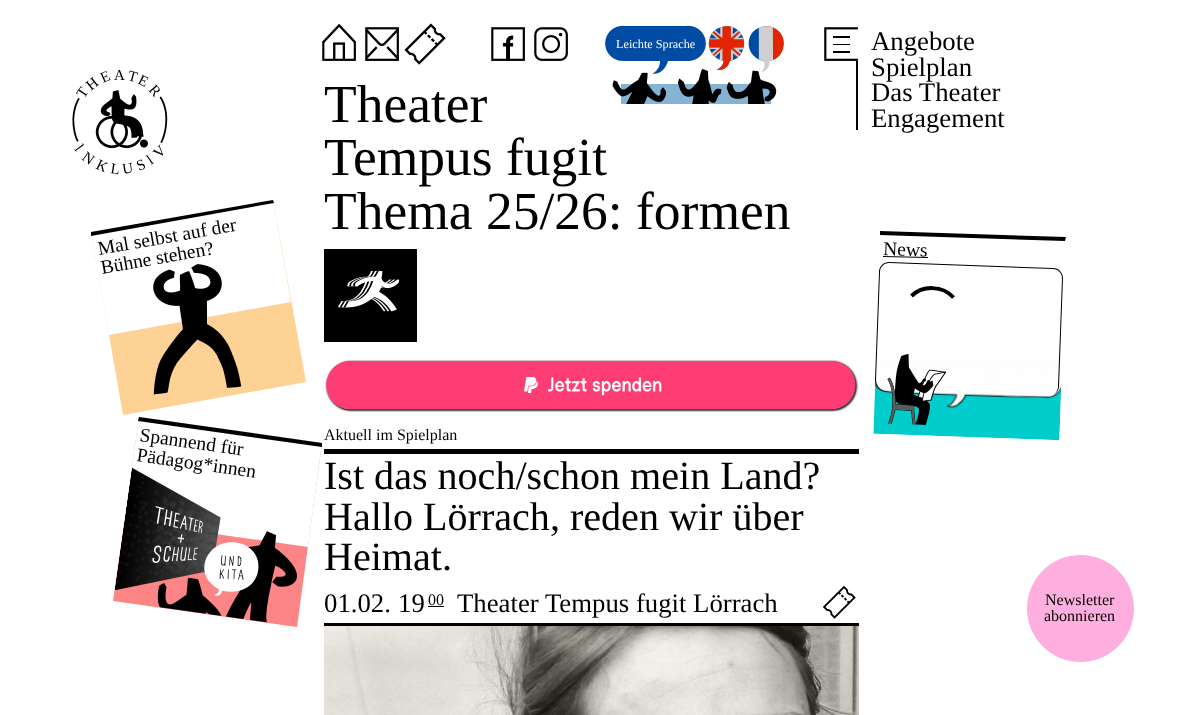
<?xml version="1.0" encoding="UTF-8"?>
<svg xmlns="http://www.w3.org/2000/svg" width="1187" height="715">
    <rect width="100%" height="100%" fill="#FFFFFF"/>
    <image x="605" y="25" width="179" height="79" href="img_01.png"/>
    <text x="616" y="48" font-family="Liberation Serif" font-size="12.25" fill="#FFFFFF">Leichte Sprache</text>
    <image x="322" y="23" width="34" height="38" href="img_02.png"/>
    <image x="365" y="27" width="34" height="34" href="img_03.png"/>
    <image x="404" y="23" width="42" height="42" href="img_04.png"/>
    <image x="491" y="27" width="34" height="34" href="img_05.png"/>
    <image x="534" y="27" width="34" height="34" href="img_06.png"/>
    <image x="824" y="27" width="34" height="34" href="img_07.png"/>
    <rect x="856" y="61" width="2" height="69" fill="#000000"/>
    <text font-family="Liberation Serif" font-size="26.75" fill="#000000">
        <tspan x="871" y="50">Angebote</tspan>
        <tspan x="871" y="76">Spielplan</tspan>
        <tspan x="871" y="101">Das Theater</tspan>
        <tspan x="871" y="127">Engagement</tspan>
    </text>
    <text x="84" y="99" transform="rotate(-56.4 84 99)" font-family="Liberation Serif" font-size="15" fill="#000000">T</text>
    <text x="91" y="91" transform="rotate(-38.9 91 91)" font-family="Liberation Serif" font-size="15" fill="#000000">H</text>
    <text x="103" y="83" transform="rotate(-23.4 103 83)" font-family="Liberation Serif" font-size="15" fill="#000000">E</text>
    <text x="114" y="80" transform="rotate(-0.4 114 80)" font-family="Liberation Serif" font-size="15" fill="#000000">A</text>
    <text x="127" y="80" transform="rotate(15.1 127 80)" font-family="Liberation Serif" font-size="15" fill="#000000">T</text>
    <text x="137" y="83" transform="rotate(26.5 137 83)" font-family="Liberation Serif" font-size="15" fill="#000000">E</text>
    <text x="148" y="90" transform="rotate(49.4 148 90)" font-family="Liberation Serif" font-size="15" fill="#000000">R</text>
    <text x="74" y="149" transform="rotate(53.9 74 149)" font-family="Liberation Serif" font-size="15" fill="#000000">l</text>
    <text x="159" y="159" transform="rotate(-43.6 159 159)" font-family="Liberation Serif" font-size="15" fill="#000000">V</text>
    <image x="72" y="90" width="96" height="59" href="img_08.png"/>
    <text x="81" y="159" transform="rotate(36.2 81 159)" font-family="Liberation Serif" font-size="15" fill="#000000">N</text>
    <text x="95" y="168" transform="rotate(25.6 95 168)" font-family="Liberation Serif" font-size="15" fill="#000000">K</text>
    <text x="110" y="173" transform="rotate(8.7 110 173)" font-family="Liberation Serif" font-size="15" fill="#000000">L</text>
    <text x="123" y="174" transform="rotate(-8.2 123 174)" font-family="Liberation Serif" font-size="15" fill="#000000">U</text>
    <text x="139" y="171" transform="rotate(-22.9 139 171)" font-family="Liberation Serif" font-size="15" fill="#000000">S</text>
    <text x="151" y="165" transform="rotate(-35.4 151 165)" font-family="Liberation Serif" font-size="15" fill="#000000">l</text>
    <text font-family="Liberation Serif" font-size="53.5" fill="#000000">
        <tspan x="324" y="122">Theater</tspan>
        <tspan x="324" y="175">Tempus fugit</tspan>
        <tspan x="324" y="229">Thema 25/26: formen</tspan>
    </text>
    <path d="M 91 232 L 273 200 L 306 382 L 123 415 Z" fill="#FED194"/>
    <path d="M 91 232 L 109 335 L 291 302 L 273 200 L 108 229 Z" fill="#FFFFFF"/>
    <path d="M 91 232 V 236 L 274 203 L 273 200 L 108 229 Z" fill="#000000"/>
    <text x="99" y="255" transform="rotate(-10 99 255)" font-family="Liberation Serif" font-size="19.5" fill="#000000">Mal selbst auf der</text>
    <text x="102" y="274" transform="rotate(-10 102 274)" font-family="Liberation Serif" font-size="19.5" fill="#000000">Bühne stehen?</text>
    <image x="153" y="264" width="89" height="131" href="img_09.png"/>
    <rect x="324" y="249" width="93" height="93" fill="#000000"/>
    <image x="338" y="270" width="62" height="42" href="img_10.png"/>
    <path d="M 880 235 V 231 L 1066 237 L 1065 241 Z" fill="#000000"/>
    <path d="M 883 256 L 928 257 V 258 L 883 257 Z" fill="#000000"/>
    <text x="883" y="255" transform="rotate(2 883 255)" font-family="Liberation Serif" font-size="19.5" fill="#000000">News</text>
    <image x="873" y="356" width="189" height="85" href="img_12.png"/>
    <path d="M 889 262 L 1053 268 C 1059 268 1063 273 1063 278 L 1059 386 C 1059 392 1054 396 1049 396 L 884 390 C 879 390 875 385 875 380 L 879 272 C 879 266 884 262 889 262 Z M 889 263 L 1053 269 C 1058 269 1062 273 1062 278 L 1058 386 C 1058 392 1054 396 1049 396 L 884 390 C 880 390 876 385 876 380 L 880 272 C 880 267 884 263 889 263 Z" fill="#000000" fill-rule="evenodd"/>
    <path d="M 911.5 296 C 923 285 942.5 285.5 953.5 297.5 M 911.5 296 C 923 285 942.5 285.5 953.5 297.5 M 911.5 296 C 923 285 942.5 285.5 953.5 297.5 M 911.5 296 C 923 285 942.5 285.5 953.5 297.5" fill="none" stroke="#000000" stroke-width="4"/>
    <image x="887" y="354" width="59" height="71" href="img_11.png"/>
    <image x="324" y="359" width="535" height="53" href="img_13.png"/>
    <path d="M 139 417 L 322 443 L 297 627 L 113 601 Z" fill="#FD8586"/>
    <path d="M 124 521 L 139 417 L 322 443 L 308 547 Z" fill="#FFFFFF"/>
    <path d="M 138 421 L 139 417 L 322 443 V 447 Z" fill="#000000"/>
    <text x="139" y="441" transform="rotate(8 139 441)" font-family="Liberation Serif" font-size="19.5" fill="#000000">Spannend für</text>
    <text x="136" y="461" transform="rotate(8 136 461)" font-family="Liberation Serif" font-size="19.5" fill="#000000">Pädagog*innen</text>
    <image x="115" y="467" width="182" height="156" href="img_14.png"/>
    <rect x="324" y="449" width="535" height="5" fill="#000000"/>
    <text x="324" y="440" font-family="Liberation Serif" font-size="16" fill="#000000">Aktuell im Spielplan</text>
    <text font-family="Liberation Serif" font-size="40.1" fill="#000000">
        <tspan x="324" y="489">Ist das noch/schon mein Land?</tspan>
        <tspan x="324" y="530">Hallo Lörrach, reden wir über</tspan>
        <tspan x="324" y="570">Heimat.</tspan>
    </text>
    <rect x="324" y="623" width="535" height="3" fill="#000000"/>
    <text x="324" y="612" font-family="Liberation Serif" font-size="26.75" fill="#000000">01.02.</text>
    <text x="398" y="612" font-family="Liberation Serif" font-size="26.75" fill="#000000">19</text>
    <text x="428" y="605" font-family="Liberation Serif" font-size="16" fill="#000000">00</text>
    <rect x="428" y="606" width="16" height="1" fill="#000000"/>
    <text x="457" y="612" font-family="Liberation Serif" font-size="26.75" fill="#000000">Theater Tempus fugit Lörrach</text>
    <image x="822" y="585" width="34" height="34" href="img_15.png"/>
    <image x="324" y="626" width="535" height="89" href="img_16.png"/>
    <circle cx="1080.5" cy="608.5" r="53.5" fill="#FFAFDF"/>
    <text x="1045" y="605" font-family="Liberation Serif" font-size="16" fill="#000000">Newsletter</text>
    <text x="1044" y="621" font-family="Liberation Serif" font-size="16" fill="#000000">abonnieren</text>
</svg>
